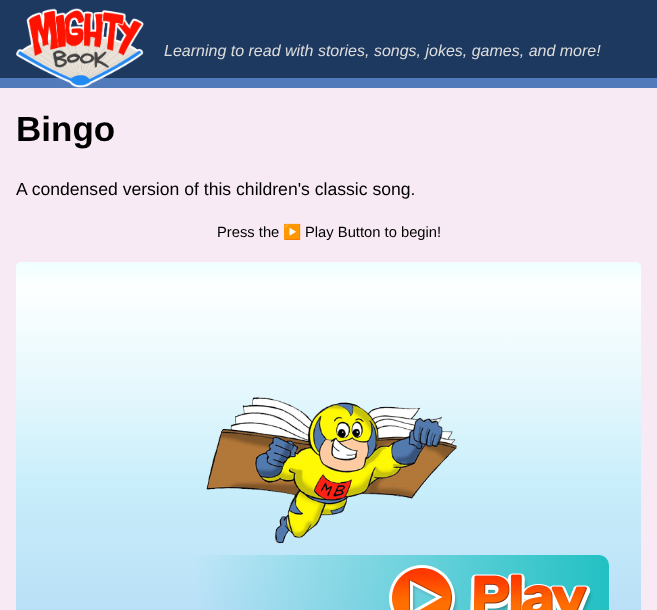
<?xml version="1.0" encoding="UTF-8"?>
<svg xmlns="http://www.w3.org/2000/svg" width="657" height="610">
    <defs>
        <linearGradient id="g1" gradientUnits="userSpaceOnUse" x1="329" y1="262" x2="329" y2="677"><stop offset="0" stop-color="#EFFFFF"/><stop offset="0.06" stop-color="#FDFFFF"/><stop offset="0.3" stop-color="#E6F8FD"/><stop offset="0.54" stop-color="#C8EEFB"/><stop offset="0.75" stop-color="#BEE4F8"/><stop offset="1" stop-color="#B1D8F5"/></linearGradient>
        <linearGradient id="g2" gradientUnits="userSpaceOnUse" x1="16" y1="600" x2="609" y2="600"><stop offset="0.3" stop-color="#22C1C3" stop-opacity="0"/><stop offset="1" stop-color="#22C1C3"/></linearGradient>
    </defs>
    <rect width="100%" height="100%" fill="#F8EAF4"/>
    <rect x="0" y="0" width="657" height="78" fill="#1E3960"/>
    <rect x="0" y="78" width="657" height="10" fill="#517ABB"/>
    <image x="16" y="8" width="128" height="80" href="img_01.png"/>
    <text x="164" y="56" font-family="Liberation Sans" font-size="16" font-style="italic" fill="#DDDDDD">Learning to read with stories, songs, jokes, games, and more!</text>
    <text x="16" y="141" font-family="Liberation Sans" font-size="35" font-weight="700" fill="#000000">Bingo</text>
    <text x="16" y="195" font-family="Liberation Sans" font-size="17.6" fill="#000000">A condensed version of this children's classic song.</text>
    <text x="217" y="237" font-family="Liberation Sans" font-size="14.75" fill="#000000">Press the</text>
    <text x="283" y="237" font-family="Noto Color Emoji" font-size="14.75" fill="#000000">▶️</text>
    <text x="305" y="237" font-family="Liberation Sans" font-size="14.75" fill="#000000">Play Button to begin!</text>
    <rect x="16" y="262" width="625" height="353" rx="5" fill="url(#g1)"/>
    <image x="206" y="397" width="251" height="147" href="img_02.png"/>
    <rect x="16" y="555" width="593" height="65" rx="10" fill="url(#g2)"/>
    <image x="389" y="565" width="204" height="45" href="img_03.png"/>
</svg>
